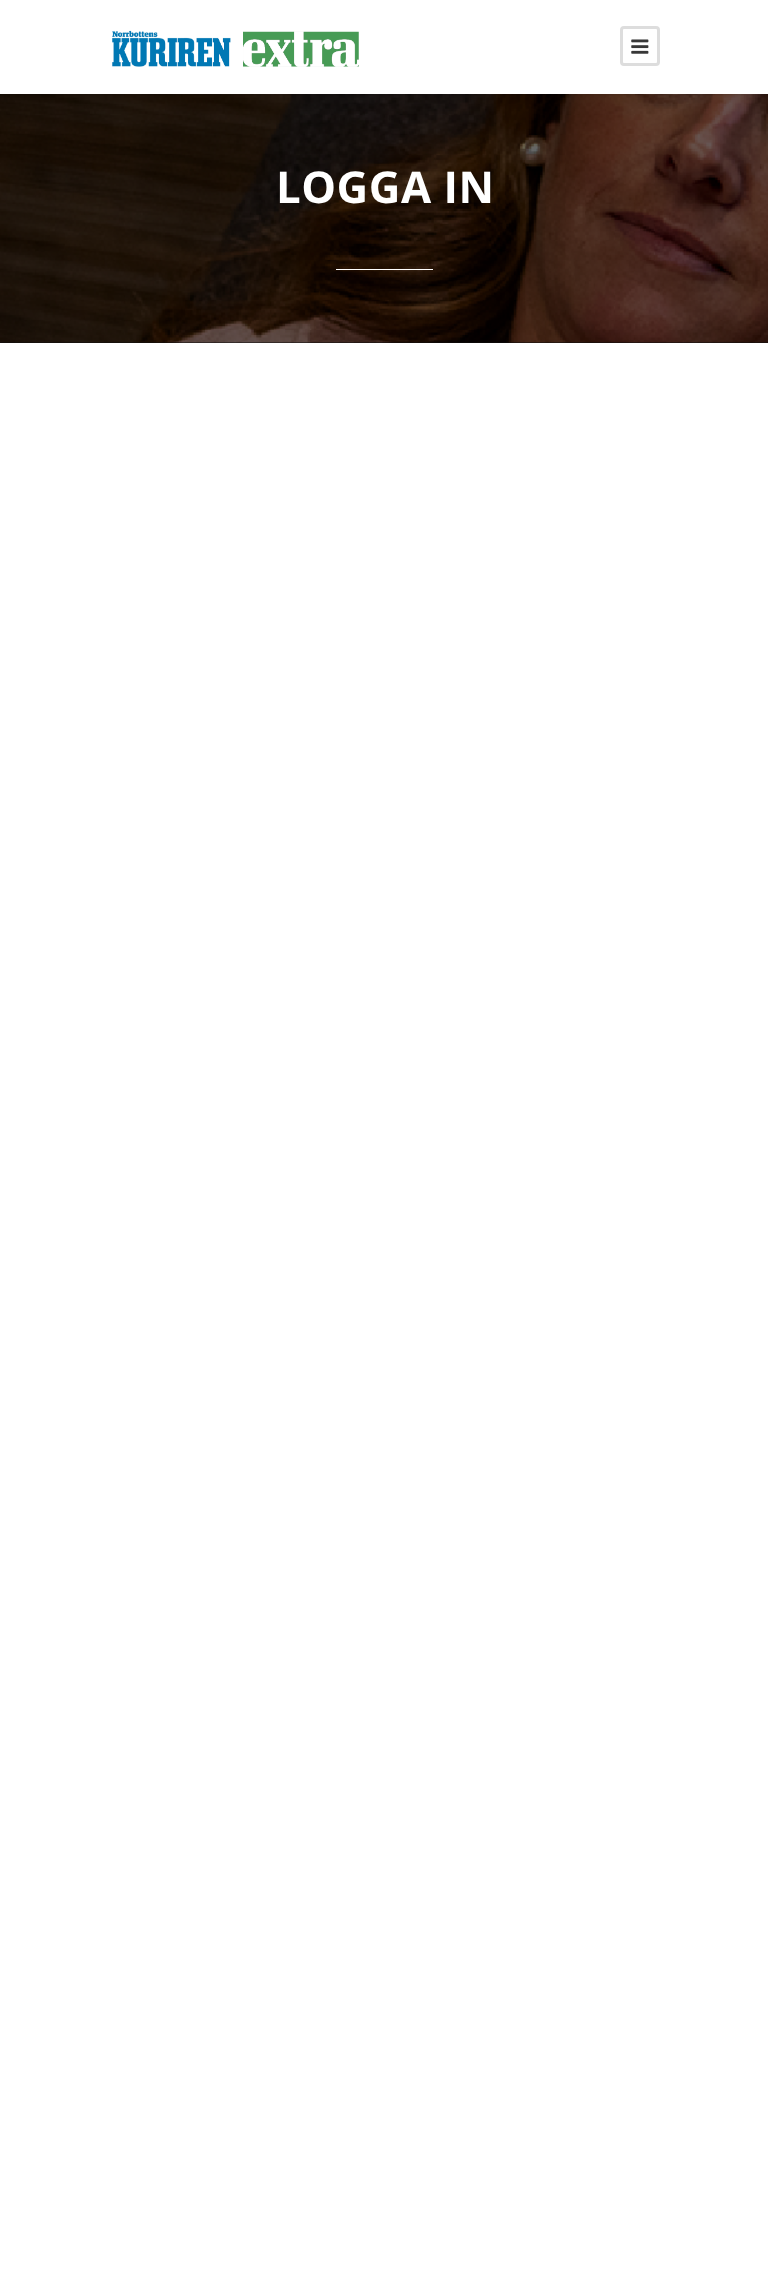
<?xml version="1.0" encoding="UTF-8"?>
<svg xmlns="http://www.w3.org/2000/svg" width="768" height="2273">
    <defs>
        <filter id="blur1" x="-50%" y="-200%" width="200%" height="500%"><feGaussianBlur stdDeviation="1"/></filter>
    </defs>
    <rect width="100%" height="100%" fill="#FFFFFF"/>
    <rect x="0" y="342" width="768" height="1" fill="#0F0F0F"/>
    <image x="0" y="94" width="768" height="249" href="img_03.png"/>
    <rect x="0" y="1" width="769" height="94" fill="#000000" fill-opacity="0.1" filter="url(#blur1)"/>
    <rect x="0" y="0" width="768" height="94" fill="#FFFFFF"/>
    <image x="112" y="30" width="247" height="37" href="img_01.png"/>
    <rect x="621.5" y="27.5" width="37" height="37" rx="2.5" fill="none" stroke="#DDDDDD" stroke-width="3"/>
    <image x="631" y="39" width="18" height="15" href="img_02.png"/>
    <text x="276" y="203" font-family="Open Sans" font-size="43.75" font-weight="700" letter-spacing="0.5" fill="#FFFFFF">LOGGA IN</text>
    <rect x="336" y="269" width="97" height="1" fill="#FFFFFF"/>
</svg>
